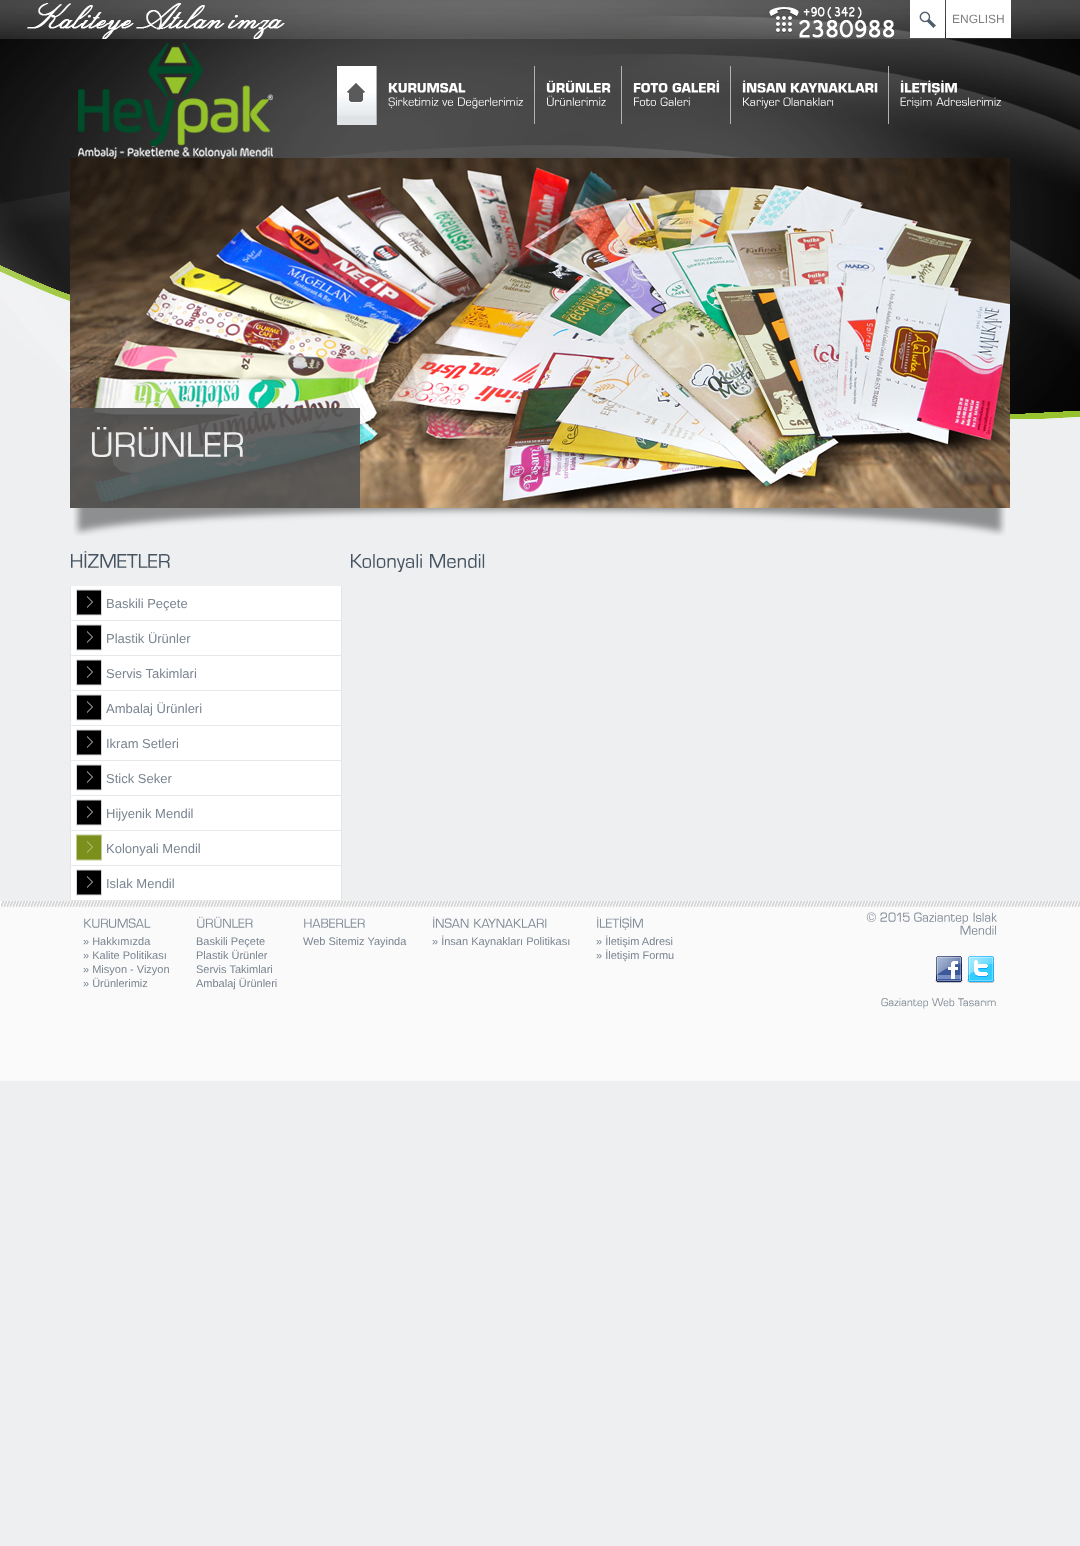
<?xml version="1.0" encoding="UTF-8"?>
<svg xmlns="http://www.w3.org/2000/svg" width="1080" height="1546">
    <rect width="100%" height="100%" fill="#EDEFF0"/>
    <image x="0" y="0" width="1080" height="419" href="img_01.png"/>
    <image x="0" y="0" width="1080" height="419" href="img_02.png"/>
    <image x="769" y="7" width="126" height="31" href="img_03.png"/>
    <rect x="910" y="0" width="35" height="38" fill="#FFFFFF"/>
    <image x="919" y="11" width="17" height="17" href="img_04.png"/>
    <rect x="946" y="0" width="65" height="38" fill="#FFFFFF"/>
    <text x="952" y="23" font-family="Liberation Sans" font-size="12" fill="#7E7E7E">ENGLISH</text>
    <image x="70" y="158" width="940" height="350" href="img_26.png"/>
    <image x="78" y="43" width="195" height="116" href="img_05.png"/>
    <rect x="337" y="116" width="39" height="9" fill="#E0E3E6"/>
    <image x="337" y="66" width="39" height="50" href="img_06.png"/>
    <rect x="376" y="66" width="1" height="59" fill="#ADB3BB"/>
    <image x="347" y="83" width="18" height="20" href="img_07.png"/>
    <rect x="534" y="66" width="1" height="58" fill="#ADB3BB"/>
    <image x="388" y="83" width="78" height="10" href="img_08.png"/>
    <image x="388" y="97" width="51" height="12" href="img_09.png"/>
    <image x="442" y="100" width="11" height="6" href="img_10.png"/>
    <image x="458" y="97" width="65" height="12" href="img_11.png"/>
    <rect x="621" y="66" width="1" height="58" fill="#ADB3BB"/>
    <image x="546" y="80" width="65" height="13" href="img_12.png"/>
    <image x="547" y="95" width="59" height="11" href="img_13.png"/>
    <rect x="730" y="66" width="1" height="58" fill="#ADB3BB"/>
    <image x="633" y="83" width="35" height="10" href="img_14.png"/>
    <image x="672" y="80" width="48" height="13" href="img_15.png"/>
    <image x="634" y="97" width="22" height="9" href="img_16.png"/>
    <image x="660" y="97" width="30" height="9" href="img_17.png"/>
    <rect x="888" y="66" width="1" height="58" fill="#ADB3BB"/>
    <image x="742" y="80" width="44" height="13" href="img_18.png"/>
    <image x="790" y="83" width="88" height="10" href="img_19.png"/>
    <image x="743" y="97" width="37" height="12" href="img_20.png"/>
    <image x="783" y="97" width="51" height="9" href="img_21.png"/>
    <image x="900" y="80" width="57" height="16" href="img_22.png"/>
    <image x="900" y="97" width="32" height="11" href="img_23.png"/>
    <image x="936" y="97" width="65" height="9" href="img_24.png"/>
    <image x="73" y="508" width="933" height="28" href="img_25.png"/>
    <rect x="70" y="408" width="290" height="100" fill="#545454" fill-opacity="0.9"/>
    <image x="91" y="427" width="152" height="30" href="img_27.png"/>
    <image x="351" y="554" width="71" height="18" href="img_28.png"/>
    <image x="430" y="554" width="55" height="14" href="img_29.png"/>
    <image x="71" y="551" width="99" height="17" href="img_30.png"/>
    <image x="70" y="586" width="272" height="35" href="img_31.png"/>
    <text x="106" y="608" font-family="Liberation Sans" font-size="13" fill="#7A8591">Baskili Peçete</text>
    <image x="70" y="621" width="272" height="35" href="img_31.png"/>
    <text x="106" y="643" font-family="Liberation Sans" font-size="13" fill="#7A8591">Plastik Ürünler</text>
    <image x="70" y="656" width="272" height="35" href="img_31.png"/>
    <text x="106" y="678" font-family="Liberation Sans" font-size="13" fill="#7A8591">Servis Takimlari</text>
    <image x="70" y="691" width="272" height="35" href="img_31.png"/>
    <text x="106" y="713" font-family="Liberation Sans" font-size="13" fill="#7A8591">Ambalaj Ürünleri</text>
    <image x="70" y="726" width="272" height="35" href="img_31.png"/>
    <text x="106" y="748" font-family="Liberation Sans" font-size="13" fill="#7A8591">Ikram Setleri</text>
    <image x="70" y="761" width="272" height="35" href="img_31.png"/>
    <text x="106" y="783" font-family="Liberation Sans" font-size="13" fill="#7A8591">Stick Seker</text>
    <image x="70" y="796" width="272" height="35" href="img_31.png"/>
    <text x="106" y="818" font-family="Liberation Sans" font-size="13" fill="#7A8591">Hijyenik Mendil</text>
    <image x="70" y="831" width="272" height="35" href="img_32.png"/>
    <text x="106" y="853" font-family="Liberation Sans" font-size="13" fill="#7A8591">Kolonyali Mendil</text>
    <image x="70" y="866" width="272" height="35" href="img_31.png"/>
    <text x="106" y="888" font-family="Liberation Sans" font-size="13" fill="#7A8591">Islak Mendil</text>
    <image x="0" y="901" width="1080" height="180" href="img_33.png"/>
    <image x="84" y="918" width="67" height="10" href="img_34.png"/>
    <text font-family="Liberation Sans" font-size="11" fill="#7A8591">
        <tspan x="83" y="945">» Hakkımızda</tspan>
        <tspan x="83" y="959">» Kalite Politikası</tspan>
        <tspan x="83" y="973">» Misyon - Vizyon</tspan>
        <tspan x="83" y="987">» Ürünlerimiz</tspan>
    </text>
    <image x="197" y="916" width="56" height="12" href="img_35.png"/>
    <text font-family="Liberation Sans" font-size="11" fill="#7A8591">
        <tspan x="196" y="945">Baskili Peçete</tspan>
        <tspan x="196" y="959">Plastik Ürünler</tspan>
        <tspan x="196" y="973">Servis Takimlari</tspan>
        <tspan x="196" y="987">Ambalaj Ürünleri</tspan>
    </text>
    <image x="304" y="918" width="61" height="10" href="img_36.png"/>
    <text x="303" y="945" font-family="Liberation Sans" font-size="11" fill="#7A8591">Web Sitemiz Yayinda</text>
    <image x="433" y="916" width="36" height="12" href="img_37.png"/>
    <image x="474" y="918" width="73" height="10" href="img_38.png"/>
    <text x="432" y="945" font-family="Liberation Sans" font-size="11" fill="#7A8591">» İnsan Kaynakları Politikası</text>
    <image x="597" y="916" width="46" height="15" href="img_39.png"/>
    <text font-family="Liberation Sans" font-size="11" fill="#7A8591">
        <tspan x="596" y="945">» İletişim Adresi</tspan>
        <tspan x="596" y="959">» İletişim Formu</tspan>
    </text>
    <image x="866" y="912" width="10" height="10" href="img_40.png"/>
    <image x="880" y="912" width="30" height="10" href="img_41.png"/>
    <image x="914" y="912" width="55" height="13" href="img_42.png"/>
    <image x="973" y="912" width="24" height="10" href="img_43.png"/>
    <image x="960" y="925" width="36" height="10" href="img_44.png"/>
    <image x="935" y="956" width="28" height="27" href="img_45.png"/>
    <image x="967" y="956" width="28" height="27" href="img_46.png"/>
    <image x="881" y="998" width="48" height="11" href="img_47.png"/>
    <image x="932" y="998" width="23" height="9" href="img_48.png"/>
    <image x="958" y="998" width="38" height="9" href="img_49.png"/>
</svg>
